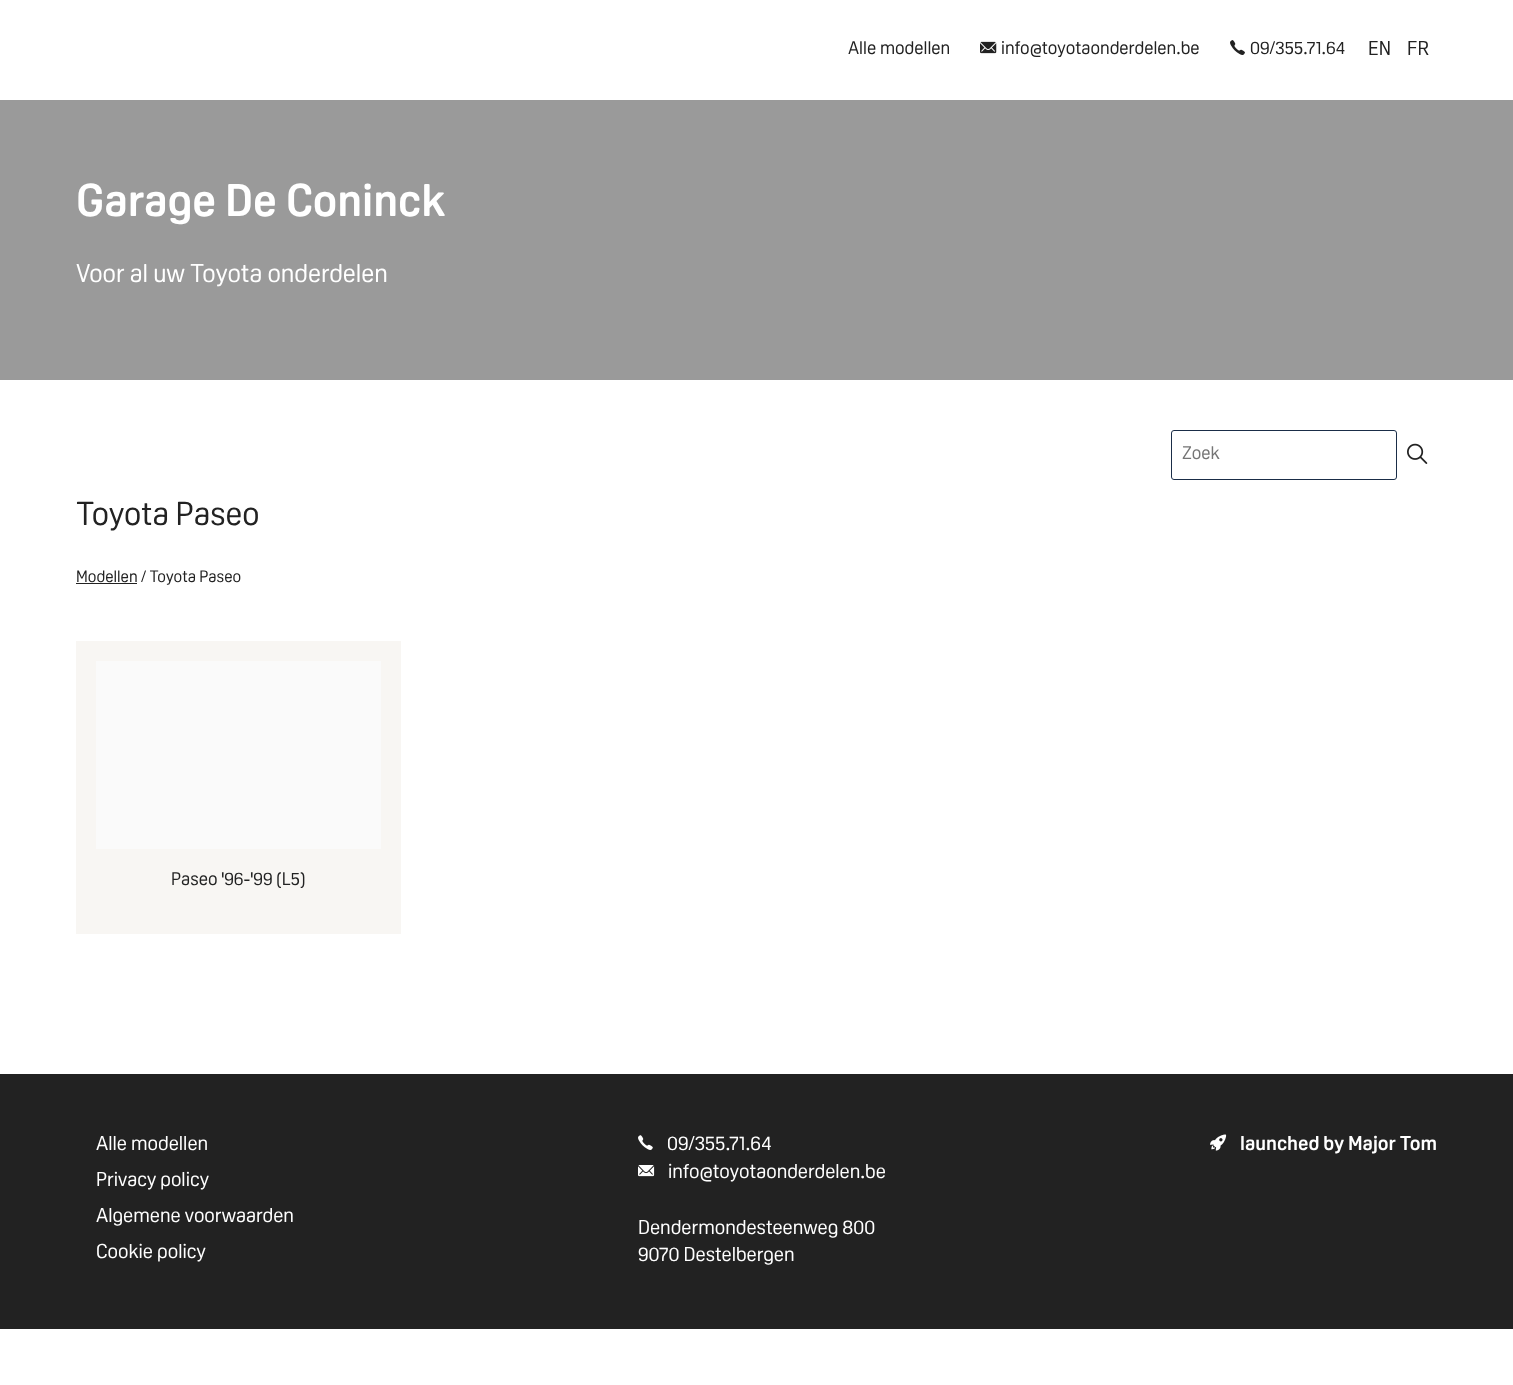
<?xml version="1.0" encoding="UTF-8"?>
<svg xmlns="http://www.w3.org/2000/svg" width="1513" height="1385">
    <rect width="100%" height="100%" fill="#FFFFFF"/>
    <text x="848" y="54" font-family="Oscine" font-size="18" fill="#222222">Alle modellen</text>
    <image x="980" y="41" width="17" height="13" href="img_01.png"/>
    <text x="1001" y="54" font-family="Oscine" font-size="18" fill="#222222">info@toyotaonderdelen.be</text>
    <image x="1230" y="40" width="15" height="15" href="img_02.png"/>
    <text x="1250" y="54" font-family="Oscine" font-size="18" fill="#222222">09/355.71.64</text>
    <text x="1368" y="55" font-family="Oscine" font-size="19.75" fill="#222222">EN</text>
    <text x="1407" y="55" font-family="Oscine" font-size="19.75" fill="#222222">FR</text>
    <rect x="0" y="100" width="1513" height="280" fill="#9A9A9A"/>
    <text x="76" y="216" font-family="Oscine" font-size="45" font-weight="700" fill="#FFFFFF">Garage De Coninck</text>
    <text x="76" y="282" font-family="Oscine" font-size="25.25" fill="#FFFFFF">Voor al uw Toyota onderdelen</text>
    <rect x="1171.5" y="430.5" width="225" height="49" rx="2.5" fill="none" stroke="#1A2D48"/>
    <text x="1182" y="459" font-family="Oscine" font-size="18" fill="#757575">Zoek</text>
    <image x="1407" y="443" width="21" height="21" href="img_03.png"/>
    <text x="76" y="525" font-family="Oscine" font-size="32.5" fill="#222222">Toyota Paseo</text>
    <rect x="76" y="583" width="61" height="1" fill="#222222"/>
    <text x="76" y="582" font-family="Oscine" font-size="16.25" fill="#222222">Modellen / Toyota Paseo</text>
    <rect x="76" y="641" width="325" height="293" fill="#F8F6F3"/>
    <rect x="96" y="661" width="285" height="188" fill="#FAFAFA"/>
    <text x="171" y="885" font-family="Oscine" font-size="18" fill="#222222">Paseo '96-'99 (L5)</text>
    <rect x="0" y="1074" width="1513" height="255" fill="#222222"/>
    <text font-family="Oscine" font-size="19.75" fill="#FFFFFF">
        <tspan x="96" y="1150">Alle modellen</tspan>
        <tspan x="96" y="1186">Privacy policy</tspan>
        <tspan x="96" y="1222">Algemene voorwaarden</tspan>
        <tspan x="96" y="1258">Cookie policy</tspan>
    </text>
    <image x="638" y="1135" width="15" height="15" href="img_04.png"/>
    <text x="667" y="1150" font-family="Oscine" font-size="19.75" fill="#FFFFFF">09/355.71.64</text>
    <image x="638" y="1165" width="17" height="12" href="img_05.png"/>
    <text x="668" y="1178" font-family="Oscine" font-size="19.75" fill="#FFFFFF">info@toyotaonderdelen.be</text>
    <text font-family="Oscine" font-size="19.75" fill="#FFFFFF">
        <tspan x="638" y="1234">Dendermondesteenweg 800</tspan>
        <tspan x="638" y="1261">9070 Destelbergen</tspan>
    </text>
    <image x="1210" y="1134" width="17" height="17" href="img_06.png"/>
    <text x="1240" y="1150" font-family="Oscine" font-size="19.75" font-weight="700" fill="#FFFFFF">launched by Major Tom</text>
</svg>
